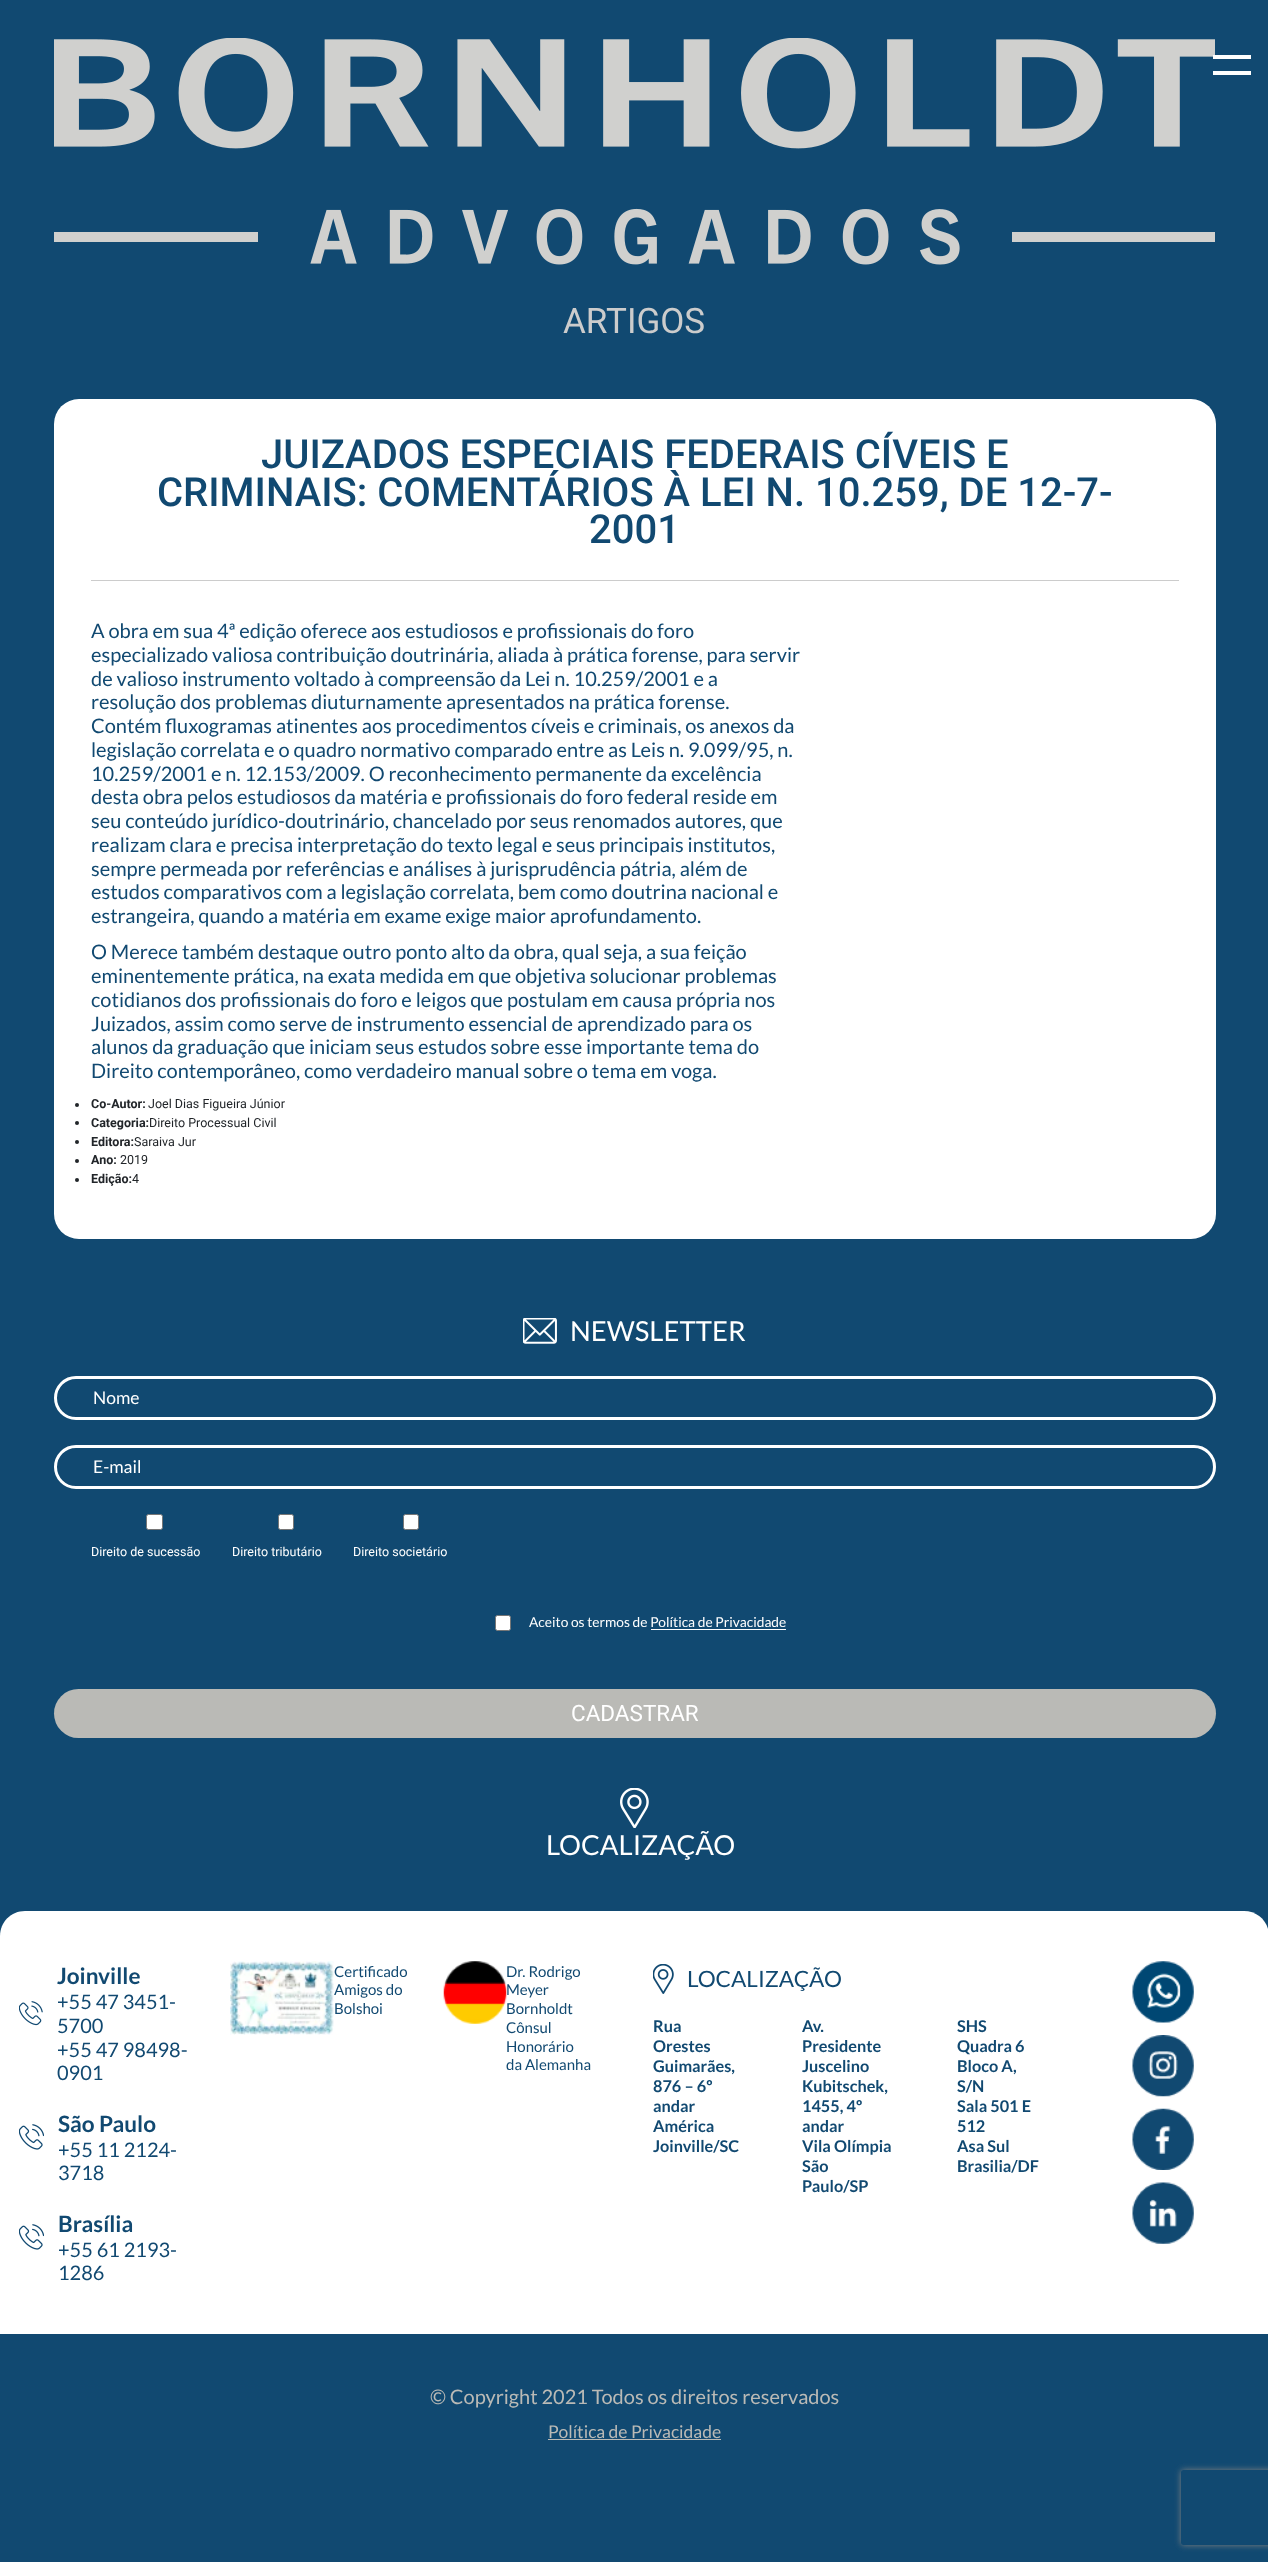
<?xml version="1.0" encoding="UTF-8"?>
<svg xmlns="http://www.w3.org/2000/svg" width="1268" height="2562">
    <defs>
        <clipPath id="clip1"><path d="M 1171 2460 H 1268 V 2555 H 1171 Z M 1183.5 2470 H 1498.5 C 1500 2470 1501 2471 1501 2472.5 V 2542.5 C 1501 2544 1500 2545 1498.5 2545 H 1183.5 C 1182 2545 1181 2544 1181 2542.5 V 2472.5 C 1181 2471 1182 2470 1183.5 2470 Z" clip-rule="evenodd"/></clipPath>
        <filter id="blur1" x="-50%" y="-200%" width="200%" height="500%"><feGaussianBlur stdDeviation="3"/></filter>
    </defs>
    <rect width="100%" height="100%" fill="#114971"/>
    <image x="54" y="38" width="1161" height="227" href="img_01.png"/>
    <rect x="1213" y="55" width="38" height="4" fill="#FFFFFF"/>
    <rect x="1213" y="71" width="38" height="4" fill="#FFFFFF"/>
    <text x="563" y="333" font-family="Roboto" font-size="35" fill="#CCCCCC">ARTIGOS</text>
    <rect x="54" y="399" width="1162" height="840" rx="25" fill="#FFFFFF"/>
    <rect x="91" y="580" width="1088" height="1" fill="#CCCCCC"/>
    <text x="261" y="468" font-family="Roboto" font-size="40" font-weight="500" fill="#114971">JUIZADOS ESPECIAIS FEDERAIS CÍVEIS E</text>
    <text x="157" y="506" font-family="Roboto" font-size="40" font-weight="500" fill="#114971">CRIMINAIS: COMENTÁRIOS À LEI N. 10.259, DE 12-7-</text>
    <text x="589" y="543" font-family="Roboto" font-size="40" font-weight="500" fill="#114971">2001</text>
    <text font-family="Lato" font-size="20" fill="#114971">
        <tspan x="91" y="638">A obra em sua 4ª edição oferece aos estudiosos e profissionais do foro</tspan>
        <tspan x="91" y="662">especializado valiosa contribuição doutrinária, aliada à prática forense, para servir</tspan>
        <tspan x="91" y="686">de valioso instrumento voltado à compreensão da Lei n. 10.259/2001 e a</tspan>
        <tspan x="91" y="709">resolução dos problemas diuturnamente apresentados na prática forense.</tspan>
        <tspan x="91" y="733">Contém fluxogramas atinentes aos procedimentos cíveis e criminais, os anexos da</tspan>
        <tspan x="91" y="757">legislação correlata e o quadro normativo comparado entre as Leis n. 9.099/95, n.</tspan>
        <tspan x="91" y="781">10.259/2001 e n. 12.153/2009. O reconhecimento permanente da excelência</tspan>
        <tspan x="91" y="804">desta obra pelos estudiosos da matéria e profissionais do foro federal reside em</tspan>
        <tspan x="91" y="828">seu conteúdo jurídico-doutrinário, chancelado por seus renomados autores, que</tspan>
        <tspan x="91" y="852">realizam clara e precisa interpretação do texto legal e seus principais institutos,</tspan>
        <tspan x="91" y="876">sempre permeada por referências e análises à jurisprudência pátria, além de</tspan>
        <tspan x="91" y="899">estudos comparativos com a legislação correlata, bem como doutrina nacional e</tspan>
        <tspan x="91" y="923">estrangeira, quando a matéria em exame exige maior aprofundamento.</tspan>
        <tspan x="91" y="959">O Merece também destaque outro ponto alto da obra, qual seja, a sua feição</tspan>
        <tspan x="91" y="983">eminentemente prática, na exata medida em que objetiva solucionar problemas</tspan>
        <tspan x="91" y="1007">cotidianos dos profissionais do foro e leigos que postulam em causa própria nos</tspan>
        <tspan x="91" y="1031">Juizados, assim como serve de instrumento essencial de aprendizado para os</tspan>
        <tspan x="91" y="1054">alunos da graduação que iniciam seus estudos sobre esse importante tema do</tspan>
        <tspan x="91" y="1078">Direito contemporâneo, como verdadeiro manual sobre o tema em voga.</tspan>
    </text>
    <circle cx="77" cy="1105" r="2" fill="#212529"/>
    <text x="91" y="1108" font-family="Roboto" font-size="12.5" font-weight="700" fill="#212529">Co-Autor:</text>
    <text x="148" y="1108" font-family="Roboto" font-size="12.5" fill="#212529">Joel Dias Figueira Júnior</text>
    <circle cx="77" cy="1123" r="2" fill="#212529"/>
    <text x="91" y="1127" font-family="Roboto" font-size="12.5" font-weight="700" fill="#212529">Categoria:</text>
    <text x="149" y="1127" font-family="Roboto" font-size="12.5" fill="#212529">Direito Processual Civil</text>
    <circle cx="77" cy="1142" r="2" fill="#212529"/>
    <text x="91" y="1146" font-family="Roboto" font-size="12.5" font-weight="700" fill="#212529">Editora:</text>
    <text x="134" y="1146" font-family="Roboto" font-size="12.5" fill="#212529">Saraiva Jur</text>
    <circle cx="77" cy="1161" r="2" fill="#212529"/>
    <text x="91" y="1164" font-family="Roboto" font-size="12.5" font-weight="700" fill="#212529">Ano:</text>
    <text x="120" y="1164" font-family="Roboto" font-size="12.5" fill="#212529">2019</text>
    <circle cx="77" cy="1180" r="2" fill="#212529"/>
    <text x="91" y="1183" font-family="Roboto" font-size="12.5" font-weight="700" fill="#212529">Edição:</text>
    <text x="132" y="1183" font-family="Roboto" font-size="12.5" fill="#212529">4</text>
    <image x="523" y="1318" width="34" height="26" href="img_02.png"/>
    <text x="570" y="1341" font-family="Lato" font-size="27.5" fill="#FFFFFF">NEWSLETTER</text>
    <rect x="55.5" y="1377.5" width="1159" height="41" rx="20.5" fill="none" stroke="#FFFFFF" stroke-width="3"/>
    <text x="93" y="1404" font-family="Lato" font-size="17.5" fill="#FFFFFF">Nome</text>
    <rect x="55.5" y="1446.5" width="1159" height="41" rx="20.5" fill="none" stroke="#FFFFFF" stroke-width="3"/>
    <text x="93" y="1473" font-family="Lato" font-size="17.5" fill="#FFFFFF">E-mail</text>
    <rect x="146.5" y="1514.5" width="16" height="15" rx="2" fill="#FFFFFF" stroke="#767676"/>
    <text x="91" y="1556" font-family="Roboto" font-size="12.5" fill="#FFFFFF">Direito de sucessão</text>
    <rect x="278.5" y="1514.5" width="15" height="15" rx="2" fill="#FFFFFF" stroke="#767676"/>
    <text x="232" y="1556" font-family="Roboto" font-size="12.5" fill="#FFFFFF">Direito tributário</text>
    <rect x="403.5" y="1514.5" width="15" height="15" rx="2" fill="#FFFFFF" stroke="#767676"/>
    <text x="353" y="1556" font-family="Roboto" font-size="12.5" fill="#FFFFFF">Direito societário</text>
    <rect x="495.5" y="1615.5" width="15" height="15" rx="2" fill="#FFFFFF" stroke="#767676"/>
    <text x="529" y="1627" font-family="Lato" font-size="13.75" fill="#FFFFFF">Aceito os termos de Política de Privacidade</text>
    <rect x="651" y="1629" width="135" height="1" fill="#FFFFFF"/>
    <rect x="54" y="1689" width="1162" height="49" rx="24.5" fill="#BABAB6"/>
    <text x="571" y="1721" font-family="Roboto" font-size="22.5" fill="#FFFFFF">CADASTRAR</text>
    <image x="620" y="1788" width="29" height="40" href="img_03.png"/>
    <text x="546" y="1855" font-family="Lato" font-size="27.5" fill="#FFFFFF">LOCALIZAÇÃO</text>
    <path d="M 25 1911 H 1244 C 1258 1911 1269 1922 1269 1936 V 2334 H 0 V 1936 C 0 1922 11 1911 25 1911 Z" fill="#FFFFFF"/>
    <image x="19" y="2001" width="24" height="25" href="img_04.png"/>
    <text x="57" y="1984" font-family="Lato" font-size="22.5" font-weight="700" fill="#114971">Joinville</text>
    <text font-family="Lato" font-size="20" fill="#114971">
        <tspan x="57" y="2009">+55 47 3451-</tspan>
        <tspan x="57" y="2033">5700</tspan>
        <tspan x="57" y="2057">+55 47 98498-</tspan>
        <tspan x="57" y="2080">0901</tspan>
    </text>
    <image x="19" y="2124" width="25" height="26" href="img_05.png"/>
    <text x="58" y="2132" font-family="Lato" font-size="22.5" font-weight="700" fill="#114971">São Paulo</text>
    <text font-family="Lato" font-size="20" fill="#114971">
        <tspan x="58" y="2157">+55 11 2124-</tspan>
        <tspan x="58" y="2180">3718</tspan>
    </text>
    <image x="19" y="2224" width="25" height="26" href="img_05.png"/>
    <text x="58" y="2232" font-family="Lato" font-size="22.5" font-weight="700" fill="#114971">Brasília</text>
    <text font-family="Lato" font-size="20" fill="#114971">
        <tspan x="58" y="2257">+55 61 2193-</tspan>
        <tspan x="58" y="2280">1286</tspan>
    </text>
    <image x="230" y="1961" width="104" height="74" href="img_06.png"/>
    <text font-family="Lato" font-size="15" fill="#114971">
        <tspan x="334" y="1977">Certificado</tspan>
        <tspan x="334" y="1995">Amigos do</tspan>
        <tspan x="334" y="2014">Bolshoi</tspan>
    </text>
    <image x="443" y="1961" width="64" height="63" href="img_07.png"/>
    <text font-family="Lato" font-size="15" fill="#114971">
        <tspan x="506" y="1977">Dr. Rodrigo</tspan>
        <tspan x="506" y="1995">Meyer</tspan>
        <tspan x="506" y="2014">Bornholdt</tspan>
        <tspan x="506" y="2033">Cônsul</tspan>
        <tspan x="506" y="2052">Honorário</tspan>
        <tspan x="506" y="2070">da Alemanha</tspan>
    </text>
    <image x="653" y="1964" width="21" height="30" href="img_08.png"/>
    <text x="687" y="1987" font-family="Lato" font-size="22.5" fill="#114971">LOCALIZAÇÃO</text>
    <text font-family="Lato" font-size="16.25" font-weight="700" fill="#114971">
        <tspan x="653" y="2032">Rua</tspan>
        <tspan x="653" y="2052">Orestes</tspan>
        <tspan x="653" y="2072">Guimarães,</tspan>
        <tspan x="653" y="2092">876 – 6º</tspan>
        <tspan x="653" y="2112">andar</tspan>
        <tspan x="653" y="2132">América</tspan>
        <tspan x="653" y="2152">Joinville/SC</tspan>
    </text>
    <text font-family="Lato" font-size="16.25" font-weight="700" fill="#114971">
        <tspan x="802" y="2032">Av.</tspan>
        <tspan x="802" y="2052">Presidente</tspan>
        <tspan x="802" y="2072">Juscelino</tspan>
        <tspan x="802" y="2092">Kubitschek,</tspan>
        <tspan x="802" y="2112">1455, 4º</tspan>
        <tspan x="802" y="2132">andar</tspan>
        <tspan x="802" y="2152">Vila Olímpia</tspan>
        <tspan x="802" y="2172">São</tspan>
        <tspan x="802" y="2192">Paulo/SP</tspan>
    </text>
    <text font-family="Lato" font-size="16.25" font-weight="700" fill="#114971">
        <tspan x="957" y="2032">SHS</tspan>
        <tspan x="957" y="2052">Quadra 6</tspan>
        <tspan x="957" y="2072">Bloco A,</tspan>
        <tspan x="957" y="2092">S/N</tspan>
        <tspan x="957" y="2112">Sala 501 E</tspan>
        <tspan x="957" y="2132">512</tspan>
        <tspan x="957" y="2152">Asa Sul</tspan>
        <tspan x="957" y="2172">Brasilia/DF</tspan>
    </text>
    <image x="1132" y="1961" width="62" height="62" href="img_09.png"/>
    <image x="1132" y="2035" width="62" height="62" href="img_10.png"/>
    <image x="1132" y="2108" width="62" height="62" href="img_11.png"/>
    <image x="1132" y="2182" width="62" height="62" href="img_12.png"/>
    <text x="430" y="2404" font-family="Lato" font-size="20" fill="#BABAB6">© Copyright 2021 Todos os direitos reservados</text>
    <text x="548" y="2438" font-family="Lato" font-size="17.5" fill="#BABAB6">Política de Privacidade</text>
    <rect x="548" y="2439" width="173" height="1" fill="#BABAB6"/>
    <g clip-path="url(#clip1)">
        <rect x="1181" y="2470" width="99" height="75" rx="2.5" fill="#808080" filter="url(#blur1)"/>
    </g>
</svg>
